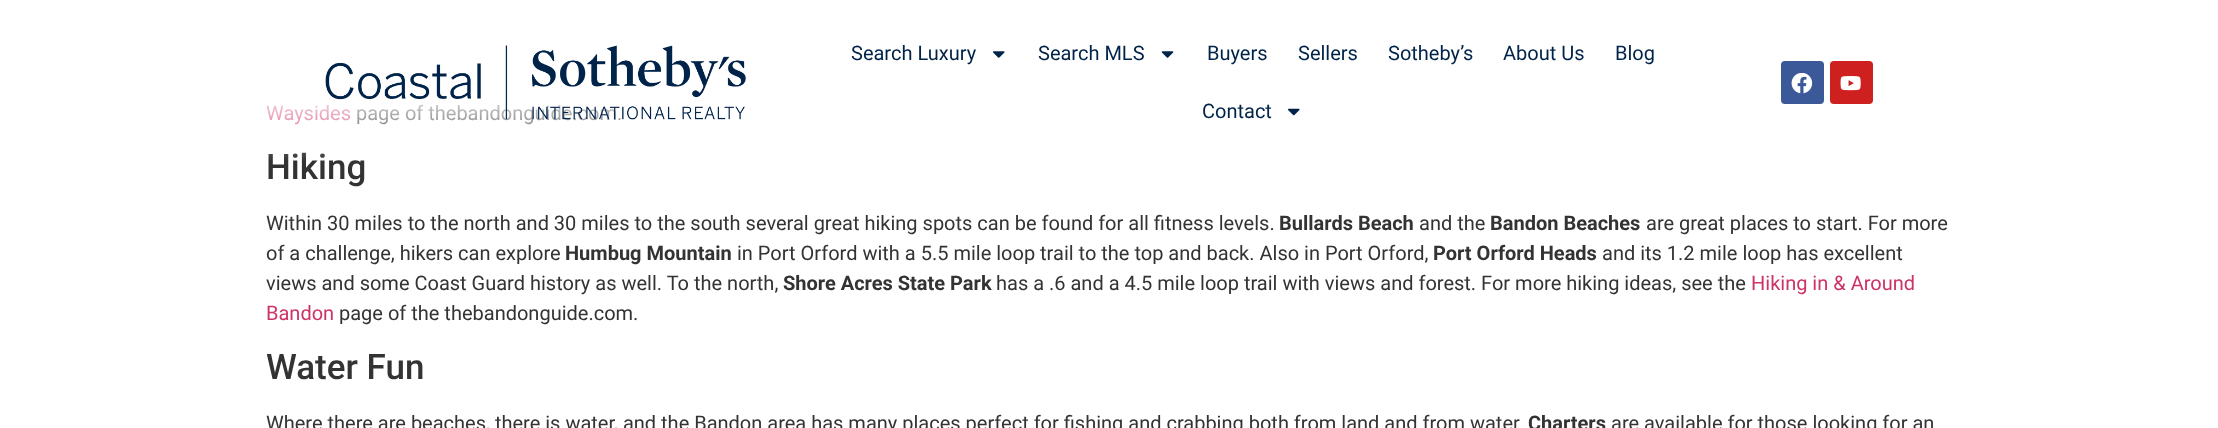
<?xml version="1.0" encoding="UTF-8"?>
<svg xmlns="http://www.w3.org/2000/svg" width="2218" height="428">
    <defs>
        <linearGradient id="g1" gradientUnits="userSpaceOnUse" x1="1109" y1="0" x2="1109" y2="165"><stop offset="0.5" stop-color="#FFFFFF"/><stop offset="0.98" stop-color="#FFFFFF" stop-opacity="0"/></linearGradient>
    </defs>
    <rect width="100%" height="100%" fill="#FFFFFF"/>
    <text x="266" y="120" font-family="Roboto" font-size="20" fill="#CC3366">Waysides</text>
    <text x="356" y="120" font-family="Roboto" font-size="20" fill="#333333">page of thebandonguide.com.</text>
    <text x="266" y="179" font-family="Roboto" font-size="35" font-weight="500" fill="#333333">Hiking</text>
    <rect x="266" y="104" width="355" height="56" fill="url(#g1)"/>
    <image x="325" y="45" width="421" height="75" href="img_01.png"/>
    <text x="851" y="60" font-family="Roboto" font-size="20" fill="#002349">Search Luxury</text>
    <image x="993" y="51" width="12" height="7" href="img_02.png"/>
    <text x="1038" y="60" font-family="Roboto" font-size="20" fill="#002349">Search MLS</text>
    <image x="1161" y="51" width="13" height="7" href="img_03.png"/>
    <text x="1207" y="60" font-family="Roboto" font-size="20" fill="#002349">Buyers</text>
    <text x="1298" y="60" font-family="Roboto" font-size="20" fill="#002349">Sellers</text>
    <text x="1388" y="60" font-family="Roboto" font-size="20" fill="#002349">Sotheby’s</text>
    <text x="1503" y="60" font-family="Roboto" font-size="20" fill="#002349">About Us</text>
    <text x="1615" y="60" font-family="Roboto" font-size="20" fill="#002349">Blog</text>
    <text x="1202" y="118" font-family="Roboto" font-size="20" fill="#002349">Contact</text>
    <image x="1288" y="108" width="12" height="8" href="img_04.png"/>
    <rect x="1781" y="61" width="43" height="43" rx="4" fill="#3B5998"/>
    <image x="1791" y="73" width="22" height="21" href="img_05.png"/>
    <rect x="1830" y="61" width="43" height="43" rx="4" fill="#CD201F"/>
    <image x="1840" y="76" width="21" height="15" href="img_06.png"/>
    <text x="266" y="230" font-family="Roboto" font-size="20" fill="#333333">Within 30 miles to the north and 30 miles to the south several great hiking spots can be found for all fitness levels.</text>
    <text x="1279" y="230" font-family="Roboto" font-size="20" font-weight="700" fill="#333333">Bullards Beach</text>
    <text x="1419" y="230" font-family="Roboto" font-size="20" fill="#333333">and the</text>
    <text x="1490" y="230" font-family="Roboto" font-size="20" font-weight="700" fill="#333333">Bandon Beaches</text>
    <text x="1646" y="230" font-family="Roboto" font-size="20" fill="#333333">are great places to start. For more</text>
    <text x="266" y="260" font-family="Roboto" font-size="20" fill="#333333">of a challenge, hikers can explore</text>
    <text x="565" y="260" font-family="Roboto" font-size="20" font-weight="700" fill="#333333">Humbug Mountain</text>
    <text x="737" y="260" font-family="Roboto" font-size="20" fill="#333333">in Port Orford with a 5.5 mile loop trail to the top and back. Also in Port Orford,</text>
    <text x="1433" y="260" font-family="Roboto" font-size="20" font-weight="700" fill="#333333">Port Orford Heads</text>
    <text x="1602" y="260" font-family="Roboto" font-size="20" fill="#333333">and its 1.2 mile loop has excellent</text>
    <text x="266" y="290" font-family="Roboto" font-size="20" fill="#333333">views and some Coast Guard history as well. To the north,</text>
    <text x="783" y="290" font-family="Roboto" font-size="20" font-weight="700" fill="#333333">Shore Acres State Park</text>
    <text x="996" y="290" font-family="Roboto" font-size="20" fill="#333333">has a .6 and a 4.5 mile loop trail with views and forest. For more hiking ideas, see the</text>
    <text x="1751" y="290" font-family="Roboto" font-size="20" fill="#CC3366">Hiking in &amp; Around</text>
    <text x="266" y="320" font-family="Roboto" font-size="20" fill="#CC3366">Bandon</text>
    <text x="339" y="320" font-family="Roboto" font-size="20" fill="#333333">page of the thebandonguide.com.</text>
    <text x="266" y="379" font-family="Roboto" font-size="35" font-weight="500" fill="#333333">Water Fun</text>
    <text x="266" y="430" font-family="Roboto" font-size="20" fill="#333333">Where there are beaches, there is water, and the Bandon area has many places perfect for fishing and crabbing both from land and from water.</text>
    <text x="1528" y="430" font-family="Roboto" font-size="20" font-weight="700" fill="#333333">Charters</text>
    <text x="1611" y="430" font-family="Roboto" font-size="20" fill="#333333">are available for those looking for an</text>
</svg>
